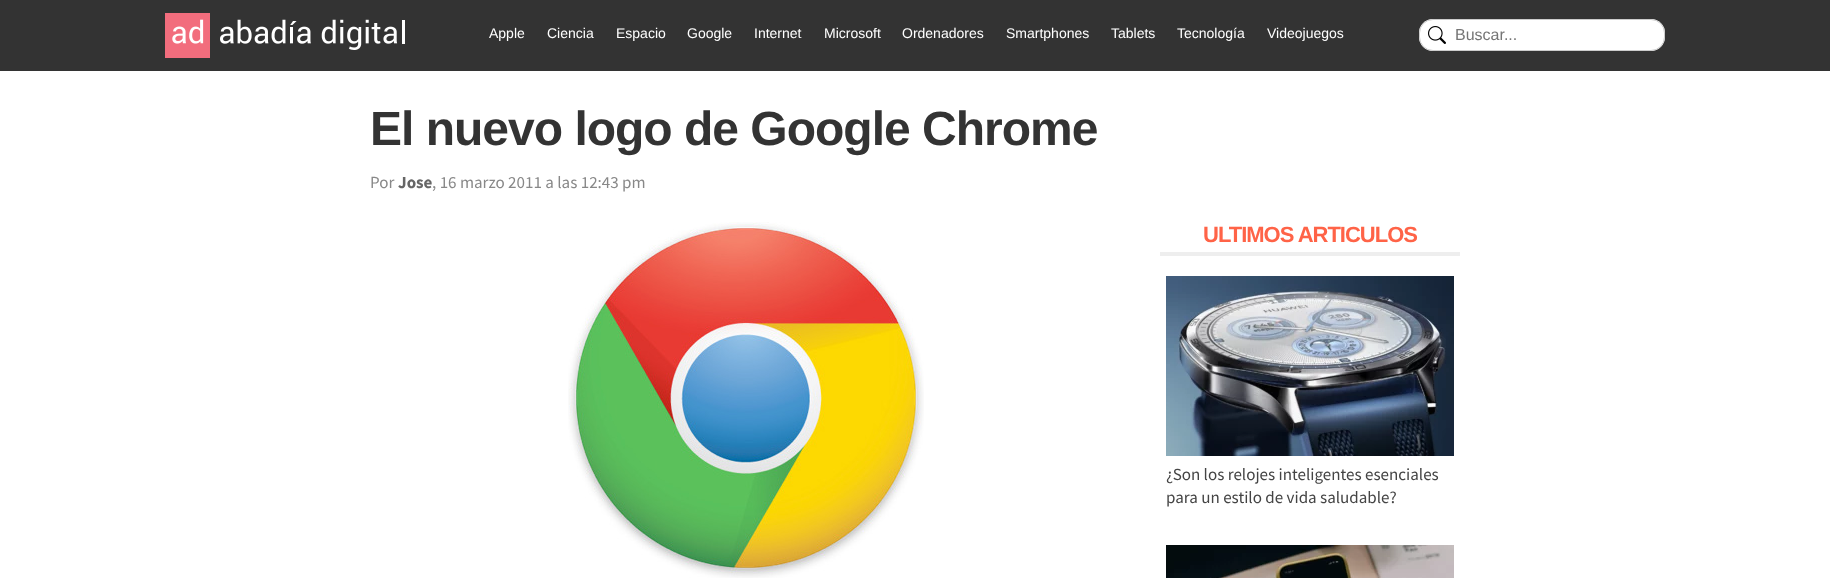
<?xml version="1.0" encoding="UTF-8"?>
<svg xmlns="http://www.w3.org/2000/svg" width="1830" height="578">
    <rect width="100%" height="100%" fill="#FFFFFF"/>
    <rect x="0" y="0" width="1830" height="71" fill="#333333"/>
    <image x="165" y="13" width="240" height="45" href="img_01.png"/>
    <text x="489" y="38" font-family="Liberation Sans" font-size="14" fill="#FFFFFF">Apple</text>
    <text x="547" y="38" font-family="Liberation Sans" font-size="14" fill="#FFFFFF">Ciencia</text>
    <text x="616" y="38" font-family="Liberation Sans" font-size="14" fill="#FFFFFF">Espacio</text>
    <text x="687" y="38" font-family="Liberation Sans" font-size="14" fill="#FFFFFF">Google</text>
    <text x="754" y="38" font-family="Liberation Sans" font-size="14" fill="#FFFFFF">Internet</text>
    <text x="824" y="38" font-family="Liberation Sans" font-size="14" fill="#FFFFFF">Microsoft</text>
    <text x="902" y="38" font-family="Liberation Sans" font-size="14" fill="#FFFFFF">Ordenadores</text>
    <text x="1006" y="38" font-family="Liberation Sans" font-size="14" fill="#FFFFFF">Smartphones</text>
    <text x="1111" y="38" font-family="Liberation Sans" font-size="14" fill="#FFFFFF">Tablets</text>
    <text x="1177" y="38" font-family="Liberation Sans" font-size="14" fill="#FFFFFF">Tecnología</text>
    <text x="1267" y="38" font-family="Liberation Sans" font-size="14" fill="#FFFFFF">Videojuegos</text>
    <rect x="1419" y="19" width="246" height="32" rx="14" fill="#FFFFFF"/>
    <image x="1428" y="26" width="18" height="18" href="img_02.png"/>
    <rect x="1419.5" y="19.5" width="245" height="31" rx="13.5" fill="none" stroke="#CCCCCC"/>
    <text x="1455" y="40" font-family="Liberation Sans" font-size="16" fill="#757575">Buscar...</text>
    <text x="370" y="145" font-family="Liberation Sans" font-size="48" font-weight="700" letter-spacing="-1" fill="#333333">El nuevo logo de Google Chrome</text>
    <text x="370" y="188" font-family="Source Sans Pro" font-size="17" fill="#888888">Por</text>
    <text x="398" y="188" font-family="Source Sans Pro" font-size="17" font-weight="700" fill="#666666">Jose</text>
    <text x="432" y="188" font-family="Source Sans Pro" font-size="17" fill="#888888">, 16 marzo 2011 a las 12:43 pm</text>
    <image x="568" y="222" width="356" height="356" href="img_03.png"/>
    <rect x="1160" y="252" width="300" height="4" fill="#EEEEEE"/>
    <text x="1203" y="242" font-family="Liberation Sans" font-size="22" font-weight="700" letter-spacing="-1" fill="#FF6347">ULTIMOS ARTICULOS</text>
    <image x="1166" y="276" width="288" height="180" href="img_04.png"/>
    <text font-family="Source Sans Pro" font-size="17" fill="#444444">
        <tspan x="1166" y="480">¿Son los relojes inteligentes esenciales</tspan>
        <tspan x="1166" y="503">para un estilo de vida saludable?</tspan>
    </text>
    <image x="1166" y="545" width="288" height="33" href="img_05.png"/>
</svg>
